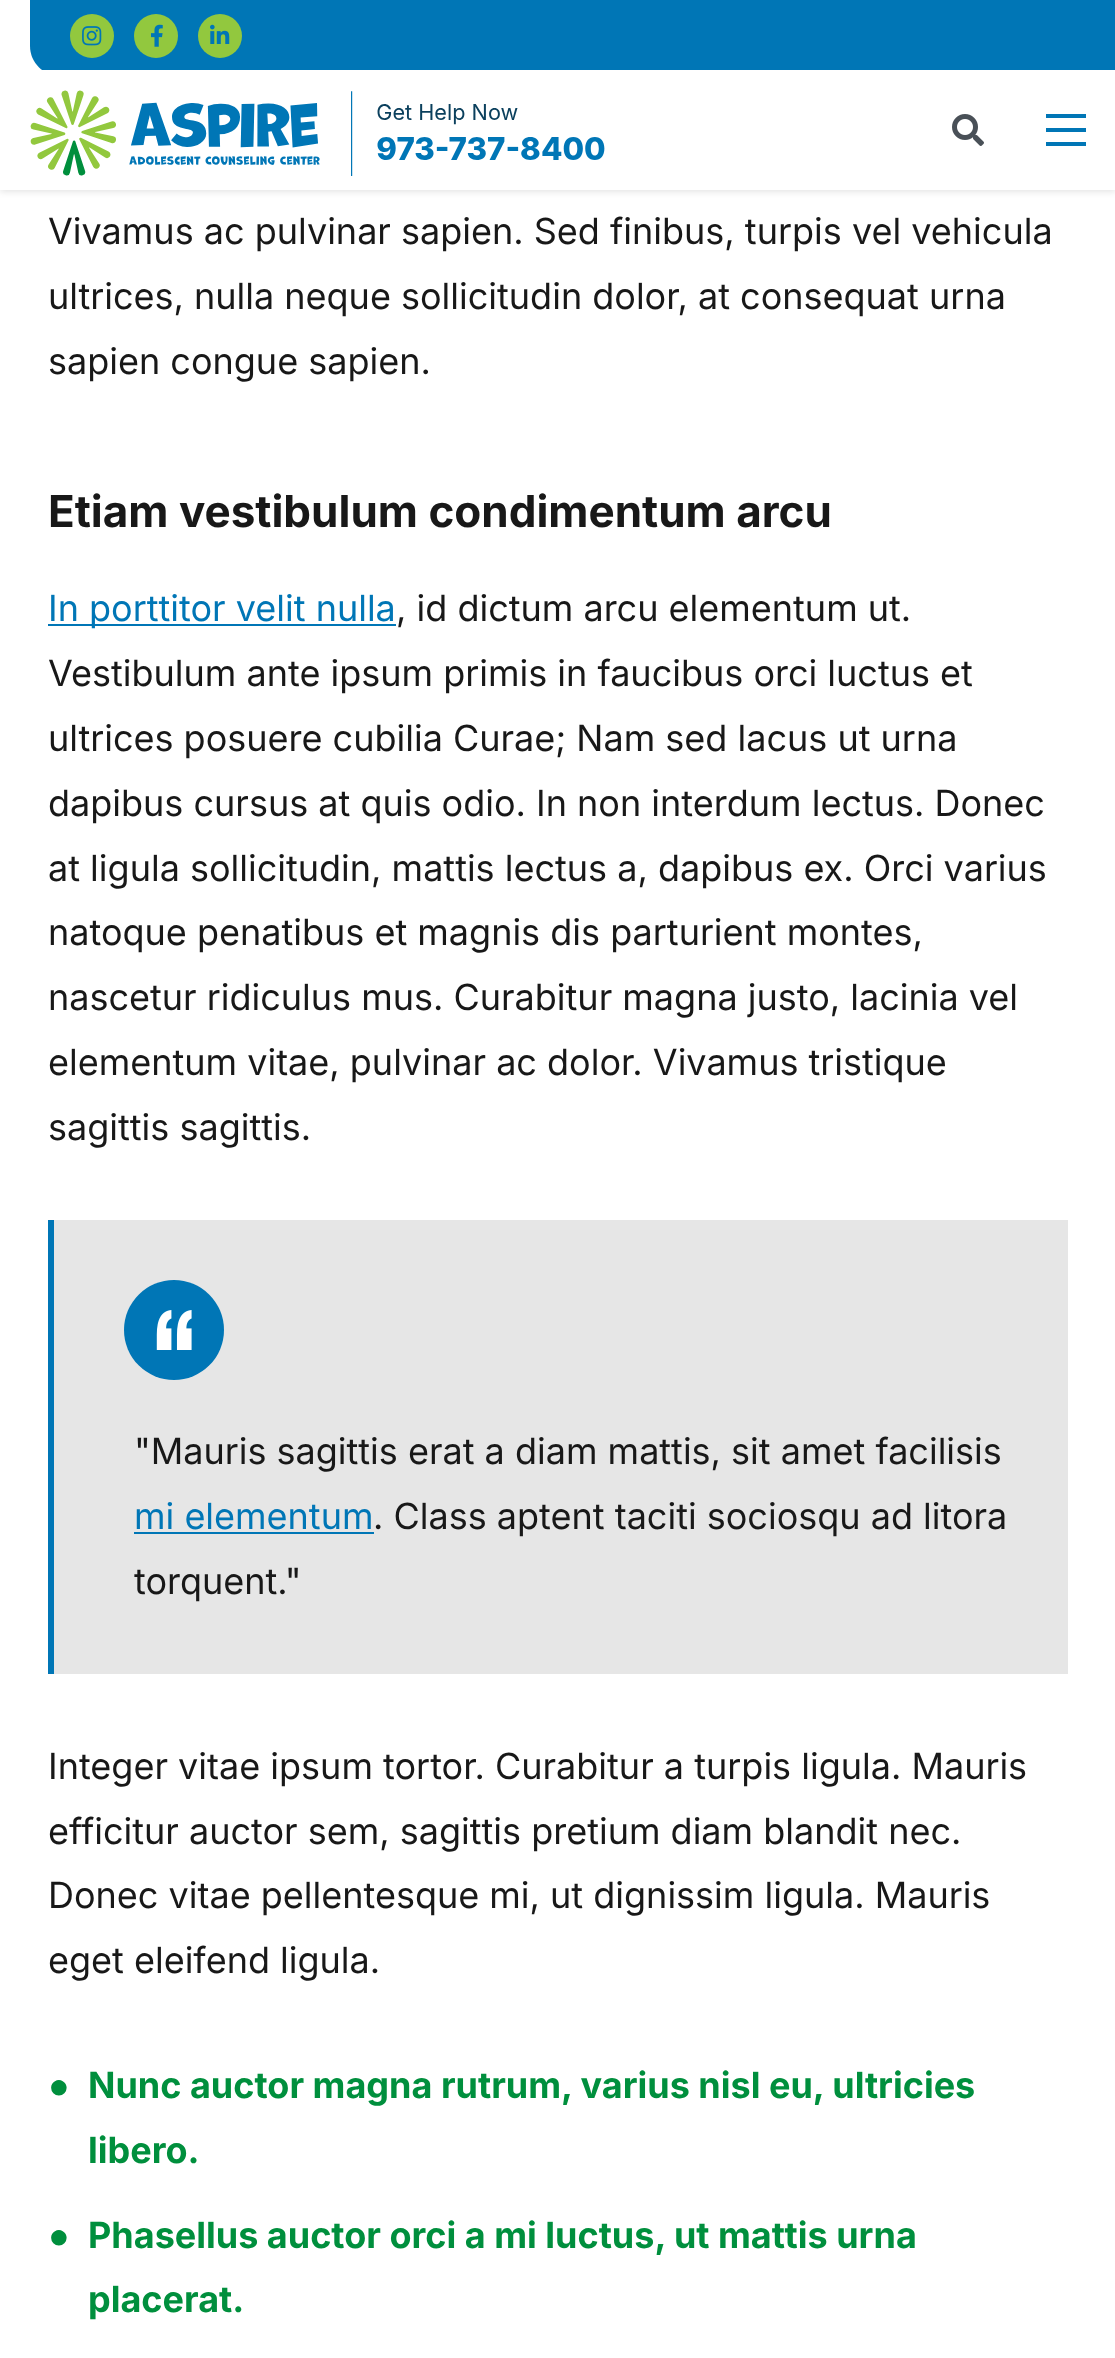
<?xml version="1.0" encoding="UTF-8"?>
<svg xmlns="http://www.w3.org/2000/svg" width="1115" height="2358">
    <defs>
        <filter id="blur1" x="-50%" y="-200%" width="200%" height="500%"><feGaussianBlur stdDeviation="3"/></filter>
    </defs>
    <rect width="100%" height="100%" fill="#FFFFFF"/>
    <rect x="0" y="2" width="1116" height="190" fill="#000000" fill-opacity="0.1" filter="url(#blur1)"/>
    <rect x="0" y="0" width="42" height="70" fill="#FFFFFF"/>
    <path d="M 30 -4 H 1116 V 76 H 60 C 43.5 76 30 62.5 30 46 Z" fill="#0076B6"/>
    <circle cx="92" cy="36" r="22" fill="#92C83E"/>
    <image x="82" y="26" width="20" height="20" href="img_01.png"/>
    <circle cx="156" cy="36" r="22" fill="#92C83E"/>
    <image x="151" y="24" width="12" height="23" href="img_02.png"/>
    <circle cx="220" cy="36" r="22" fill="#92C83E"/>
    <image x="210" y="24" width="20" height="20" href="img_03.png"/>
    <rect x="0" y="70" width="1115" height="120" fill="#FFFFFF"/>
    <image x="30" y="90" width="575" height="86" href="img_04.png"/>
    <image x="952" y="114" width="32" height="32" href="img_05.png"/>
    <rect x="1046" y="114" width="40" height="4" fill="#0076B6"/>
    <rect x="1046" y="128" width="40" height="4" fill="#0076B6"/>
    <rect x="1046" y="142" width="40" height="4" fill="#0076B6"/>
    <text font-family="Inter" font-size="36" fill="#181818">
        <tspan x="48" y="244">Vivamus ac pulvinar sapien. Sed finibus, turpis vel vehicula</tspan>
        <tspan x="48" y="309">ultrices, nulla neque sollicitudin dolor, at consequat urna</tspan>
        <tspan x="48" y="374">sapien congue sapien.</tspan>
    </text>
    <text x="48" y="527" font-family="Inter" font-size="44" font-weight="700" fill="#181818">Etiam vestibulum condimentum arcu</text>
    <rect x="48" y="624" width="348" height="2" fill="#0076B6"/>
    <text x="48" y="621" font-family="Inter" font-size="36" fill="#0076B6">In porttitor velit nulla</text>
    <text x="396" y="621" font-family="Inter" font-size="36" fill="#181818">, id dictum arcu elementum ut.</text>
    <text font-family="Inter" font-size="36" fill="#181818">
        <tspan x="48" y="686">Vestibulum ante ipsum primis in faucibus orci luctus et</tspan>
        <tspan x="48" y="751">ultrices posuere cubilia Curae; Nam sed lacus ut urna</tspan>
        <tspan x="48" y="816">dapibus cursus at quis odio. In non interdum lectus. Donec</tspan>
        <tspan x="48" y="881">at ligula sollicitudin, mattis lectus a, dapibus ex. Orci varius</tspan>
        <tspan x="48" y="945">natoque penatibus et magnis dis parturient montes,</tspan>
        <tspan x="48" y="1010">nascetur ridiculus mus. Curabitur magna justo, lacinia vel</tspan>
        <tspan x="48" y="1075">elementum vitae, pulvinar ac dolor. Vivamus tristique</tspan>
        <tspan x="48" y="1140">sagittis sagittis.</tspan>
    </text>
    <rect x="54" y="1220" width="1014" height="454" fill="#E6E6E6"/>
    <rect x="48" y="1220" width="6" height="454" fill="#0076B6"/>
    <circle cx="174" cy="1330" r="50" fill="#0076B6"/>
    <image x="156" y="1310" width="36" height="40" href="img_06.png"/>
    <text x="134" y="1464" font-family="Inter" font-size="36" fill="#181818">"Mauris sagittis erat a diam mattis, sit amet facilisis</text>
    <text x="134" y="1529" font-family="Inter" font-size="36" fill="#0076B6">mi elementum</text>
    <rect x="134" y="1532" width="240" height="2" fill="#0076B6"/>
    <text x="373" y="1529" font-family="Inter" font-size="36" fill="#181818">. Class aptent taciti sociosqu ad litora</text>
    <text x="134" y="1594" font-family="Inter" font-size="36" fill="#181818">torquent."</text>
    <text font-family="Inter" font-size="36" fill="#181818">
        <tspan x="48" y="1779">Integer vitae ipsum tortor. Curabitur a turpis ligula. Mauris</tspan>
        <tspan x="48" y="1844">efficitur auctor sem, sagittis pretium diam blandit nec.</tspan>
        <tspan x="48" y="1908">Donec vitae pellentesque mi, ut dignissim ligula. Mauris</tspan>
        <tspan x="48" y="1973">eget eleifend ligula.</tspan>
    </text>
    <text x="48" y="2098" font-family="Liberation Sans" font-size="36" font-weight="700" fill="#008F3D">●</text>
    <text font-family="Inter" font-size="36" font-weight="700" fill="#008F3D">
        <tspan x="88" y="2098">Nunc auctor magna rutrum, varius nisl eu, ultricies</tspan>
        <tspan x="88" y="2163">libero.</tspan>
    </text>
    <text x="48" y="2248" font-family="Liberation Sans" font-size="36" font-weight="700" fill="#008F3D">●</text>
    <text font-family="Inter" font-size="36" font-weight="700" fill="#008F3D">
        <tspan x="88" y="2248">Phasellus auctor orci a mi luctus, ut mattis urna</tspan>
        <tspan x="88" y="2312">placerat.</tspan>
    </text>
</svg>
